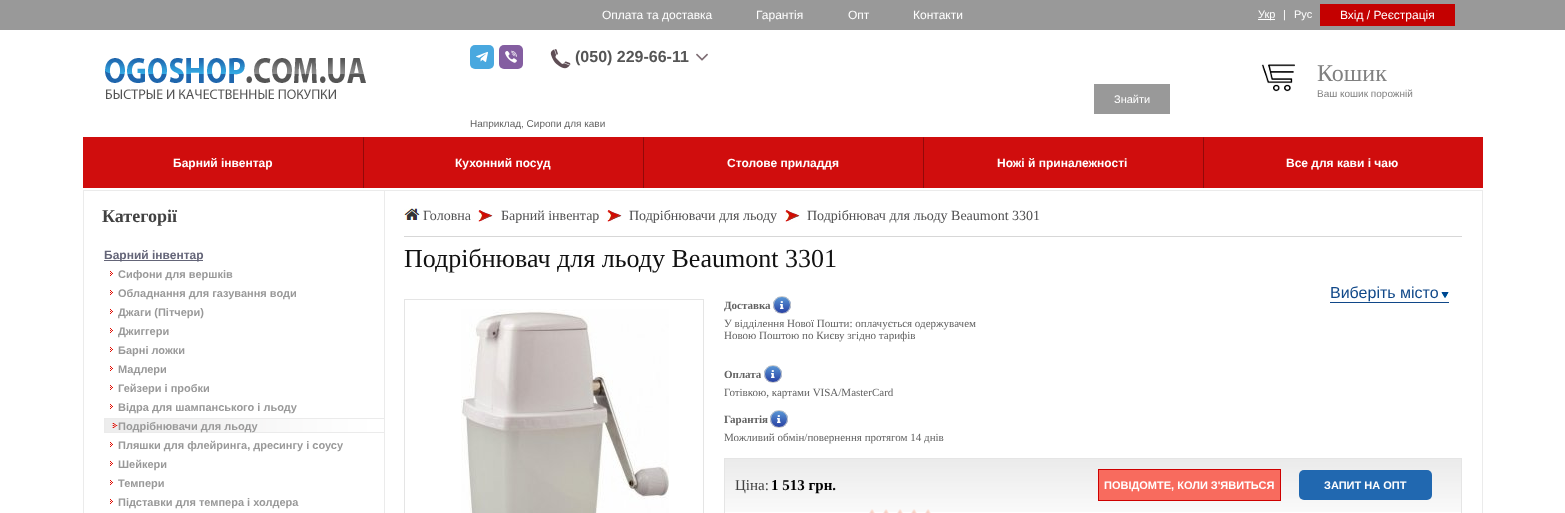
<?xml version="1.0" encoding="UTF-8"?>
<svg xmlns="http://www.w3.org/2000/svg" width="1565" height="513">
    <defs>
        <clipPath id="clip1"><rect x="773" y="296" width="18" height="18" rx="9"/></clipPath>
        <linearGradient id="g1" gradientUnits="userSpaceOnUse" x1="782" y1="297" x2="782" y2="313"><stop offset="0" stop-color="#5996D6"/><stop offset="1" stop-color="#2841A3"/></linearGradient>
        <clipPath id="clip2"><rect x="764" y="365" width="18" height="18" rx="9"/></clipPath>
        <linearGradient id="g2" gradientUnits="userSpaceOnUse" x1="773" y1="366" x2="773" y2="382"><stop offset="0" stop-color="#5996D6"/><stop offset="1" stop-color="#2841A3"/></linearGradient>
        <clipPath id="clip3"><rect x="770" y="410" width="18" height="18" rx="9"/></clipPath>
        <linearGradient id="g3" gradientUnits="userSpaceOnUse" x1="779" y1="411" x2="779" y2="427"><stop offset="0" stop-color="#5996D6"/><stop offset="1" stop-color="#2841A3"/></linearGradient>
    </defs>
    <rect width="100%" height="100%" fill="#FFFFFF"/>
    <rect x="0" y="0" width="1565" height="30" fill="#999999"/>
    <text x="602" y="19" font-family="Liberation Sans" font-size="12" fill="#FFFFFF">Оплата та доставка</text>
    <text x="756" y="19" font-family="Liberation Sans" font-size="12" fill="#FFFFFF">Гарантія</text>
    <text x="848" y="19" font-family="Liberation Sans" font-size="12" fill="#FFFFFF">Опт</text>
    <text x="913" y="19" font-family="Liberation Sans" font-size="12" fill="#FFFFFF">Контакти</text>
    <rect x="1258" y="19" width="17" height="1" fill="#FFFFFF"/>
    <text x="1258" y="18" font-family="Liberation Sans" font-size="11" fill="#FFFFFF">Укр</text>
    <text x="1283" y="18" font-family="Liberation Sans" font-size="11" fill="#FFFFFF">|</text>
    <text x="1294" y="18" font-family="Liberation Sans" font-size="11" fill="#FFFFFF">Рус</text>
    <rect x="1320" y="4" width="135" height="22" fill="#C40000"/>
    <text x="1340" y="19" font-family="Liberation Sans" font-size="12" fill="#FFFFFF">Вхід / Реєстрація</text>
    <image x="105" y="58" width="261" height="41" href="img_01.png"/>
    <rect x="470" y="45" width="24" height="24" rx="5" fill="#49A8DF"/>
    <image x="476" y="51" width="12" height="11" href="img_02.png"/>
    <rect x="499" y="45" width="24" height="24" rx="5" fill="#845EA1"/>
    <image x="505" y="50" width="12" height="13" href="img_03.png"/>
    <image x="550" y="49" width="21" height="20" href="img_04.png"/>
    <text x="575" y="62" font-family="Liberation Sans" font-size="16" font-weight="700" fill="#555555">(050) 229-66-11</text>
    <image x="696" y="53" width="12" height="8" href="img_05.png"/>
    <rect x="1094" y="84" width="76" height="30" fill="#999999"/>
    <text x="1114" y="103" font-family="Liberation Sans" font-size="11" fill="#FFFFFF">Знайти</text>
    <text x="470" y="127" font-family="Liberation Sans" font-size="10" fill="#626262">Наприклад, Сиропи для кави</text>
    <image x="1261" y="64" width="34" height="28" href="img_06.png"/>
    <text x="1317" y="81" font-family="Liberation Serif" font-size="24" fill="#808080">Кошик</text>
    <text x="1317" y="97" font-family="Liberation Sans" font-size="10" fill="#808080">Ваш кошик порожній</text>
    <rect x="83" y="137" width="1400" height="51" fill="#D00D0D"/>
    <text x="173" y="167" font-family="Liberation Sans" font-size="12" font-weight="700" fill="#FFFFFF">Барний інвентар</text>
    <path d="M 363 188 V 137 L 364 138 V 188 Z" fill="#920909"/>
    <text x="455" y="167" font-family="Liberation Sans" font-size="12" font-weight="700" fill="#FFFFFF">Кухонний посуд</text>
    <path d="M 643 188 V 137 L 644 138 V 188 Z" fill="#920909"/>
    <text x="727" y="167" font-family="Liberation Sans" font-size="12" font-weight="700" fill="#FFFFFF">Столове приладдя</text>
    <path d="M 923 188 V 137 L 924 138 V 188 Z" fill="#920909"/>
    <text x="997" y="167" font-family="Liberation Sans" font-size="12" font-weight="700" fill="#FFFFFF">Ножі й приналежності</text>
    <path d="M 1203 188 V 137 L 1204 138 V 188 Z" fill="#920909"/>
    <text x="1286" y="167" font-family="Liberation Sans" font-size="12" font-weight="700" fill="#FFFFFF">Все для кави і чаю</text>
    <rect x="83.5" y="190.5" width="1399" height="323" fill="none" stroke="#EBEBEB"/>
    <text x="102" y="222" font-family="Liberation Serif" font-size="18" font-weight="700" fill="#414141">Категорії</text>
    <rect x="104" y="260" width="99" height="1" fill="#646578"/>
    <text x="104" y="259" font-family="Liberation Sans" font-size="12" font-weight="700" fill="#646578">Барний інвентар</text>
    <image x="110" y="271" width="3" height="5" href="img_07.png"/>
    <text x="118" y="278" font-family="Liberation Sans" font-size="11" font-weight="700" fill="#999999">Сифони для вершків</text>
    <image x="110" y="290" width="3" height="5" href="img_07.png"/>
    <text x="118" y="297" font-family="Liberation Sans" font-size="11" font-weight="700" fill="#999999">Обладнання для газування води</text>
    <image x="110" y="309" width="3" height="5" href="img_07.png"/>
    <text x="118" y="316" font-family="Liberation Sans" font-size="11" font-weight="700" fill="#999999">Джаги (Пітчери)</text>
    <image x="110" y="328" width="3" height="5" href="img_07.png"/>
    <text x="118" y="335" font-family="Liberation Sans" font-size="11" font-weight="700" fill="#999999">Джиггери</text>
    <image x="110" y="347" width="3" height="5" href="img_07.png"/>
    <text x="118" y="354" font-family="Liberation Sans" font-size="11" font-weight="700" fill="#999999">Барні ложки</text>
    <image x="110" y="366" width="3" height="5" href="img_07.png"/>
    <text x="118" y="373" font-family="Liberation Sans" font-size="11" font-weight="700" fill="#999999">Мадлери</text>
    <image x="110" y="385" width="3" height="5" href="img_07.png"/>
    <text x="118" y="392" font-family="Liberation Sans" font-size="11" font-weight="700" fill="#999999">Гейзери і пробки</text>
    <image x="110" y="404" width="3" height="5" href="img_07.png"/>
    <text x="118" y="411" font-family="Liberation Sans" font-size="11" font-weight="700" fill="#999999">Відра для шампанського і льоду</text>
    <image x="104" y="418" width="280" height="15" href="img_08.png"/>
    <text x="118" y="430" font-family="Liberation Sans" font-size="11" font-weight="700" fill="#999999">Подрібнювачи для льоду</text>
    <image x="110" y="442" width="3" height="5" href="img_07.png"/>
    <text x="118" y="449" font-family="Liberation Sans" font-size="11" font-weight="700" fill="#999999">Пляшки для флейринга, дресингу і соусу</text>
    <image x="110" y="461" width="3" height="5" href="img_07.png"/>
    <text x="118" y="468" font-family="Liberation Sans" font-size="11" font-weight="700" fill="#999999">Шейкери</text>
    <image x="110" y="480" width="3" height="5" href="img_07.png"/>
    <text x="118" y="487" font-family="Liberation Sans" font-size="11" font-weight="700" fill="#999999">Темпери</text>
    <image x="110" y="499" width="3" height="5" href="img_07.png"/>
    <text x="118" y="506" font-family="Liberation Sans" font-size="11" font-weight="700" fill="#999999">Підставки для темпера і холдера</text>
    <rect x="384" y="191" width="1" height="322" fill="#EBEBEB"/>
    <rect x="404" y="236" width="1058" height="1" fill="#D7D7D7"/>
    <image x="404" y="208" width="16" height="12" href="img_09.png"/>
    <text x="423" y="220" font-family="Liberation Serif" font-size="14" fill="#4F4F50">Головна</text>
    <image x="478" y="210" width="15" height="12" href="img_10.png"/>
    <text x="501" y="220" font-family="Liberation Serif" font-size="14" fill="#4F4F50">Барний інвентар</text>
    <image x="607" y="210" width="15" height="12" href="img_10.png"/>
    <text x="629" y="220" font-family="Liberation Serif" font-size="14" fill="#4F4F50">Подрібнювачи для льоду</text>
    <image x="785" y="210" width="15" height="12" href="img_10.png"/>
    <text x="807" y="220" font-family="Liberation Serif" font-size="14" fill="#4F4F50">Подрібнювач для льоду Beaumont 3301</text>
    <text x="404" y="267" font-family="Liberation Serif" font-size="26" fill="#111111">Подрібнювач для льоду Beaumont 3301</text>
    <rect x="404.5" y="299.5" width="299" height="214" fill="none" stroke="#E5E5E5"/>
    <image x="461" y="309" width="208" height="204" href="img_11.png"/>
    <image x="1441" y="292" width="8" height="6" href="img_12.png"/>
    <rect x="1330" y="302" width="119" height="1" fill="#104889"/>
    <text x="1330" y="298" font-family="Liberation Sans" font-size="16" fill="#104889">Виберіть місто</text>
    <text x="724" y="309" font-family="Liberation Serif" font-size="11" font-weight="700" fill="#626262">Доставка</text>
    <g clip-path="url(#clip1)">
        <rect x="773" y="297" width="18" height="16" fill="url(#g1)"/>
    </g>
    <circle cx="782" cy="305" r="8.5" fill="none" stroke="#CCCCCC"/>
    <image x="780" y="301" width="4" height="8" href="img_13.png"/>
    <text font-family="Liberation Serif" font-size="11" fill="#626262">
        <tspan x="724" y="327">У відділення Нової Пошти: оплачується одержувачем</tspan>
        <tspan x="724" y="339">Новою Поштою по Києву згідно тарифів</tspan>
    </text>
    <text x="724" y="378" font-family="Liberation Serif" font-size="11" font-weight="700" fill="#626262">Оплата</text>
    <g clip-path="url(#clip2)">
        <rect x="764" y="366" width="18" height="16" fill="url(#g2)"/>
    </g>
    <circle cx="773" cy="374" r="8.5" fill="none" stroke="#CCCCCC"/>
    <image x="771" y="370" width="4" height="8" href="img_13.png"/>
    <text x="724" y="396" font-family="Liberation Serif" font-size="11" fill="#626262">Готівкою, картами VISA/MasterCard</text>
    <text x="724" y="423" font-family="Liberation Serif" font-size="11" font-weight="700" fill="#626262">Гарантія</text>
    <g clip-path="url(#clip3)">
        <rect x="770" y="411" width="18" height="16" fill="url(#g3)"/>
    </g>
    <circle cx="779" cy="419" r="8.5" fill="none" stroke="#CCCCCC"/>
    <image x="777" y="415" width="4" height="8" href="img_13.png"/>
    <text x="724" y="441" font-family="Liberation Serif" font-size="11" fill="#626262">Можливий обмін/повернення протягом 14 днів</text>
    <image x="725" y="459" width="736" height="53" href="img_14.png"/>
    <rect x="724.5" y="458.5" width="737" height="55" fill="none" stroke="#E5E5E5"/>
    <text x="735" y="490" font-family="Liberation Serif" font-size="15" fill="#414141">Ціна:</text>
    <text x="771" y="490" font-family="Liberation Serif" font-size="15" font-weight="700" fill="#000000">1 513 грн.</text>
    <rect x="1098.5" y="469.5" width="182" height="31" fill="#F86B5E" stroke="#CE0000"/>
    <text x="1104" y="489" font-family="Liberation Sans" font-size="11" font-weight="700" fill="#FFFFFF">ПОВІДОМТЕ, КОЛИ З'ЯВИТЬСЯ</text>
    <rect x="1299" y="470" width="133" height="30" rx="5" fill="#2168B0"/>
    <text x="1324" y="489" font-family="Liberation Sans" font-size="11" font-weight="700" fill="#FFFFFF">ЗАПИТ НА ОПТ</text>
    <image x="869" y="509" width="6" height="4" href="img_15.png"/>
    <image x="883" y="509" width="6" height="4" href="img_15.png"/>
    <image x="897" y="509" width="6" height="4" href="img_15.png"/>
    <image x="911" y="509" width="6" height="4" href="img_15.png"/>
    <image x="925" y="509" width="6" height="4" href="img_15.png"/>
</svg>
